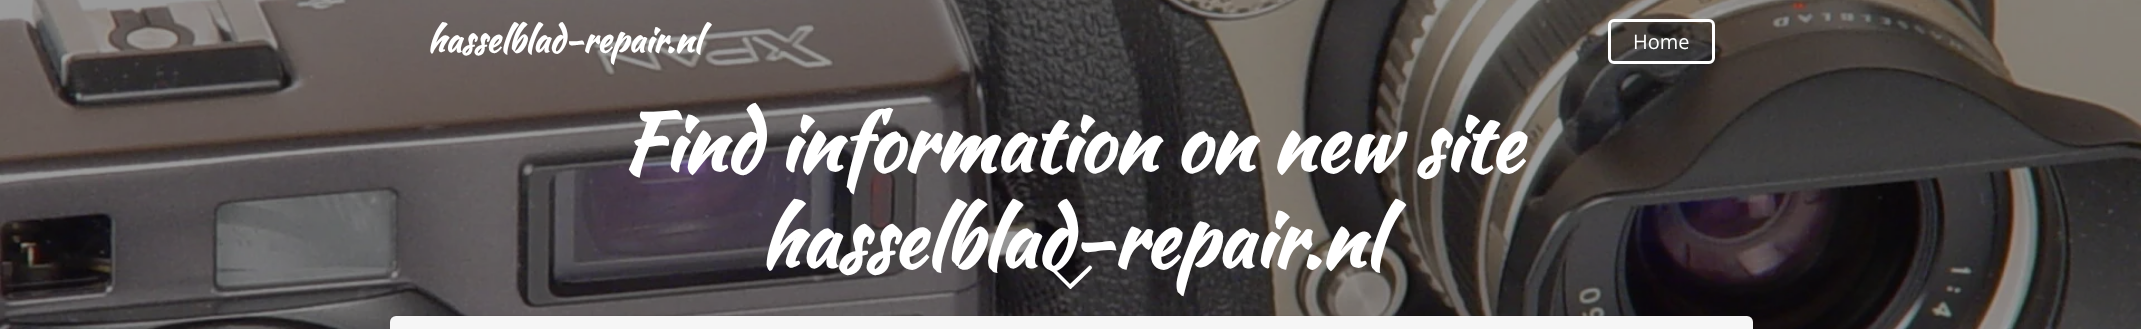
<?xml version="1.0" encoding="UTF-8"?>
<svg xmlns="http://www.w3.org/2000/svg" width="2141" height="329">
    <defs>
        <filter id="blur1" x="-50%" y="-200%" width="200%" height="500%"><feGaussianBlur stdDeviation="1"/></filter>
    </defs>
    <rect width="100%" height="100%" fill="#FFFFFF"/>
    <image x="0" y="0" width="2141" height="329" href="img_01.png"/>
    <text x="427" y="52" font-family="Kaushan Script" font-size="35" font-weight="700" fill="#FFFFFF">hasselblad-repair.nl</text>
    <rect x="1609.5" y="20.5" width="104" height="42" rx="4.5" fill="none" stroke="#FFFFFF" stroke-width="3"/>
    <text x="1633" y="49" font-family="Open Sans" font-size="20" fill="#FFFFFF">Home</text>
    <text x="620" y="171" font-family="Kaushan Script" font-size="79.5" font-weight="700" fill="#FFFFFF">Find information on new site</text>
    <text x="759" y="267" font-family="Kaushan Script" font-size="79.5" font-weight="700" fill="#FFFFFF">hasselblad-repair.nl</text>
    <path d="M 1052 266 L 1070 284 L 1089 266 C 1090 265 1092 266 1092 268 C 1092 269 1073 287 1071 289 H 1070 L 1053 272 C 1052 272 1046 267 1050 266 Z" fill="#FFFFFF"/>
    <rect x="390" y="316" width="1363" height="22" rx="6" fill="#000000" fill-opacity="0.1" filter="url(#blur1)"/>
    <rect x="390" y="316" width="1363" height="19" rx="6" fill="#F6F6F6"/>
</svg>
